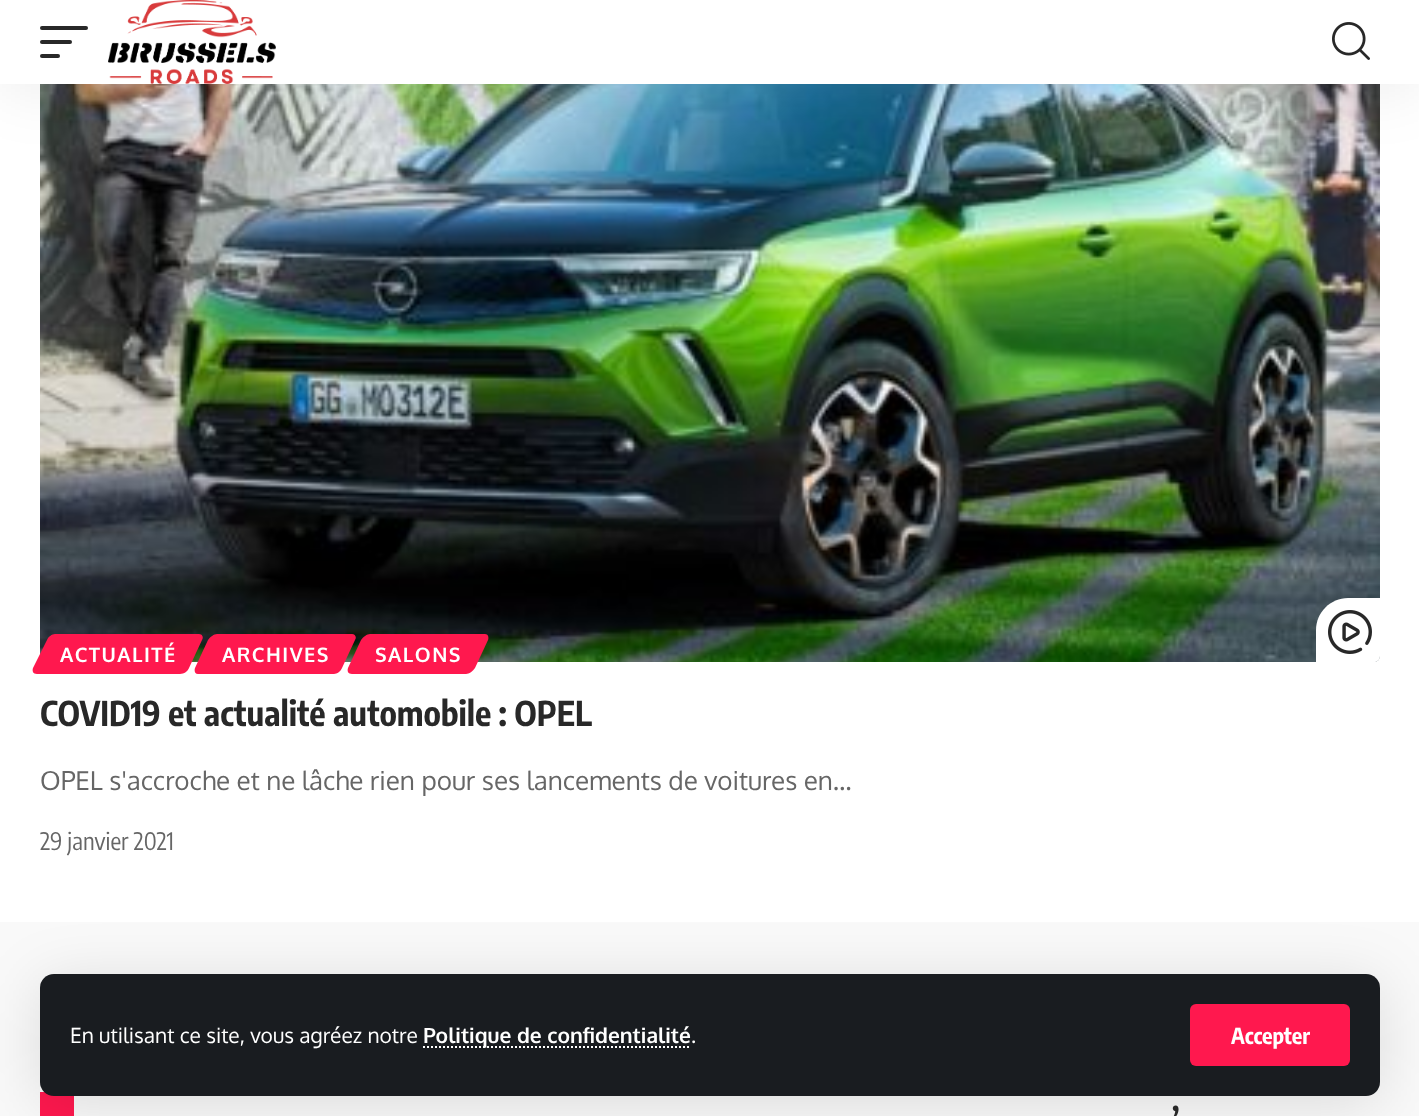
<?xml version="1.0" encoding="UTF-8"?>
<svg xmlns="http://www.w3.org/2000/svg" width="1419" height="1116">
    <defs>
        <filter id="blur1" x="-50%" y="-200%" width="200%" height="500%"><feGaussianBlur stdDeviation="30"/></filter>
    </defs>
    <rect width="100%" height="100%" fill="#FFFFFF"/>
    <image x="40" y="84" width="1340" height="578" href="img_01.png"/>
    <path d="M 1348 598 H 1380 V 656 C 1380 659.5 1377.5 662 1374 662 H 1316 V 630 C 1316 612.5 1330.5 598 1348 598 Z" fill="#FFFFFF"/>
    <image x="1328" y="610" width="44" height="44" href="img_02.png"/>
    <path d="M 55 634 H 199 C 202 634 204 637 202 640 L 189 668 C 188 671 184 674 180 674 H 37 C 33 674 32 671 33 668 L 47 640 C 48 637 52 634 55 634 Z" fill="#FF184E"/>
    <text x="60" y="662" font-family="Oxygen" font-size="20" font-weight="700" letter-spacing="1.5" fill="#FFFFFF">ACTUALITÉ</text>
    <path d="M 217 634 H 352 C 355 634 357 637 355 640 L 342 668 C 341 671 337 674 334 674 H 198 C 195 674 194 671 195 668 L 208 640 C 210 637 214 634 217 634 Z" fill="#FF184E"/>
    <text x="222" y="662" font-family="Oxygen" font-size="20" font-weight="700" letter-spacing="1.5" fill="#FFFFFF">ARCHIVES</text>
    <path d="M 370 634 H 485 C 488 634 489 637 488 640 L 475 668 C 473 671 469 674 466 674 H 352 C 348 674 347 671 348 668 L 361 640 C 363 637 367 634 370 634 Z" fill="#FF184E"/>
    <text x="375" y="662" font-family="Oxygen" font-size="20" font-weight="700" letter-spacing="1.5" fill="#FFFFFF">SALONS</text>
    <text x="40" y="726" font-family="Encode Sans Condensed" font-size="34" font-weight="700" fill="#282828">COVID19 et actualité automobile : OPEL</text>
    <text x="40" y="790" font-family="Oxygen" font-size="26" fill="#666666">OPEL s'accroche et ne lâche rien pour ses lancements de voitures en…</text>
    <text x="40" y="850" font-family="Encode Sans Condensed" font-size="24" fill="#666666">29 janvier 2021</text>
    <rect x="0" y="8" width="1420" height="84" fill="#000000" fill-opacity="0.07" filter="url(#blur1)"/>
    <rect x="0" y="0" width="1419" height="84" fill="#FFFFFF"/>
    <rect x="40" y="26" width="48" height="4" rx="2" fill="#282828"/>
    <rect x="40" y="40" width="32" height="4" rx="2" fill="#282828"/>
    <rect x="40" y="54" width="20" height="4" rx="2" fill="#282828"/>
    <image x="108" y="0" width="168" height="84" href="img_03.png"/>
    <image x="1332" y="22" width="38" height="38" href="img_04.png"/>
    <rect x="0" y="922" width="1419" height="194" fill="#F9F9F9"/>
    <rect x="40" y="1092" width="34" height="24" fill="#FF184E"/>
    <rect x="40" y="982" width="1340" height="122" rx="14" fill="#000000" fill-opacity="0.12" filter="url(#blur1)"/>
    <rect x="40" y="974" width="1340" height="122" rx="14" fill="#191C20"/>
    <text x="70" y="1043" font-family="Oxygen" font-size="21" fill="#FFFFFF">En utilisant ce site, vous agréez notre</text>
    <path d="M 423 1047 H 691" fill="none" stroke="#FFFFFF" stroke-width="2" stroke-dasharray="2 2"/>
    <text x="423" y="1043" font-family="Oxygen" font-size="21" font-weight="700" fill="#FFFFFF">Politique de confidentialité</text>
    <text x="691" y="1043" font-family="Oxygen" font-size="21" fill="#FFFFFF">.</text>
    <rect x="1190" y="1004" width="160" height="62" rx="6" fill="#FF184E"/>
    <text x="1231" y="1044" font-family="Encode Sans Condensed" font-size="22" font-weight="700" fill="#FFFFFF">Accepter</text>
    <text x="1172" y="1130" font-family="Encode Sans Condensed" font-size="30" font-weight="700" fill="#282828">’</text>
</svg>
